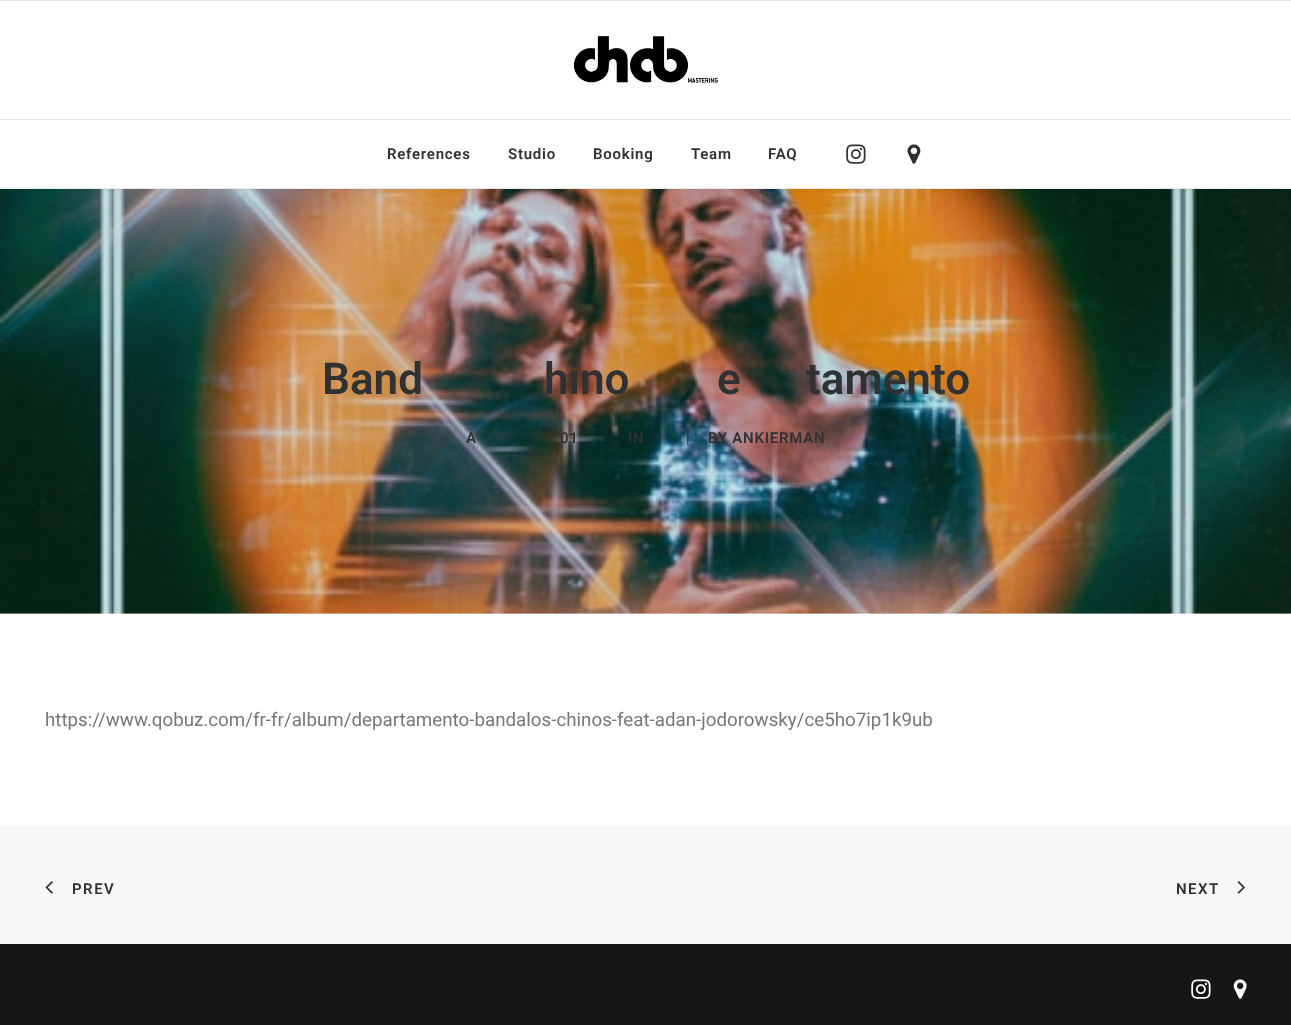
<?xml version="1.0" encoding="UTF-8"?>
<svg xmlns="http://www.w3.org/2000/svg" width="1291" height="1025">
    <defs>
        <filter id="blur1" x="-50%" y="-200%" width="200%" height="500%"><feGaussianBlur stdDeviation="6"/></filter>
    </defs>
    <rect width="100%" height="100%" fill="#EAEAEA"/>
    <image x="0" y="189" width="1291" height="425" href="img_04.png"/>
    <rect x="13" y="136" width="1266" height="45" fill="#000000" fill-opacity="0.6" filter="url(#blur1)"/>
    <rect x="0" y="1" width="1291" height="118" fill="#FFFFFF"/>
    <image x="573" y="36" width="145" height="47" href="img_01.png"/>
    <rect x="0" y="120" width="1291" height="68" fill="#FFFFFF"/>
    <rect x="0" y="188" width="1291" height="1" fill="#EAEAEA"/>
    <text x="387" y="159" font-family="Roboto" font-size="15" font-weight="600" letter-spacing="0.75" fill="#303133">References</text>
    <text x="508" y="159" font-family="Roboto" font-size="15" font-weight="600" letter-spacing="0.75" fill="#303133">Studio</text>
    <text x="593" y="159" font-family="Roboto" font-size="15" font-weight="600" letter-spacing="0.75" fill="#303133">Booking</text>
    <text x="691" y="159" font-family="Roboto" font-size="15" font-weight="600" letter-spacing="0.75" fill="#303133">Team</text>
    <text x="768" y="159" font-family="Roboto" font-size="15" font-weight="600" letter-spacing="0.75" fill="#303133">FAQ</text>
    <image x="846" y="144" width="20" height="20" href="img_02.png"/>
    <image x="907" y="144" width="14" height="20" href="img_03.png"/>
    <text x="322" y="394" font-family="Roboto" font-size="44" font-weight="600" fill="#303133">Band</text>
    <text x="544" y="394" font-family="Roboto" font-size="44" font-weight="600" fill="#303133">hino</text>
    <text x="717" y="394" font-family="Roboto" font-size="44" font-weight="600" fill="#303133">e</text>
    <text x="806" y="394" font-family="Roboto" font-size="44" font-weight="600" fill="#303133">tamento</text>
    <text x="466" y="443" font-family="Roboto" font-size="15" font-weight="600" letter-spacing="0.75" fill="#303133">A</text>
    <text x="560" y="443" font-family="Roboto" font-size="15" font-weight="600" letter-spacing="0.75" fill="#303133">01</text>
    <text x="628" y="443" font-family="Roboto" font-size="15" font-weight="600" letter-spacing="0.75" fill="#303133">IN</text>
    <text x="686" y="443" font-family="Roboto" font-size="15" letter-spacing="0.75" fill="#303133">|</text>
    <text x="708" y="443" font-family="Roboto" font-size="15" font-weight="600" letter-spacing="0.75" fill="#303133">BY ANKIERMAN</text>
    <rect x="0" y="614" width="1291" height="212" fill="#FFFFFF"/>
    <text x="45" y="726" font-family="Roboto" font-size="18.75" fill="#777777">https://www.qobuz.com/fr-fr/album/departamento-bandalos-chinos-feat-adan-jodorowsky/ce5ho7ip1k9ub</text>
    <rect x="0" y="826" width="1291" height="118" fill="#F7F7F7"/>
    <image x="45" y="881" width="8" height="13" href="img_05.png"/>
    <text x="72" y="894" font-family="Roboto" font-size="15" font-weight="600" letter-spacing="1.5" fill="#303133">PREV</text>
    <text x="1176" y="894" font-family="Roboto" font-size="15" font-weight="600" letter-spacing="1.5" fill="#303133">NEXT</text>
    <image x="1237" y="881" width="8" height="13" href="img_06.png"/>
    <rect x="0" y="944" width="1291" height="81" fill="#141618"/>
    <image x="1191" y="979" width="20" height="20" href="img_07.png"/>
    <image x="1233" y="979" width="14" height="20" href="img_08.png"/>
</svg>
